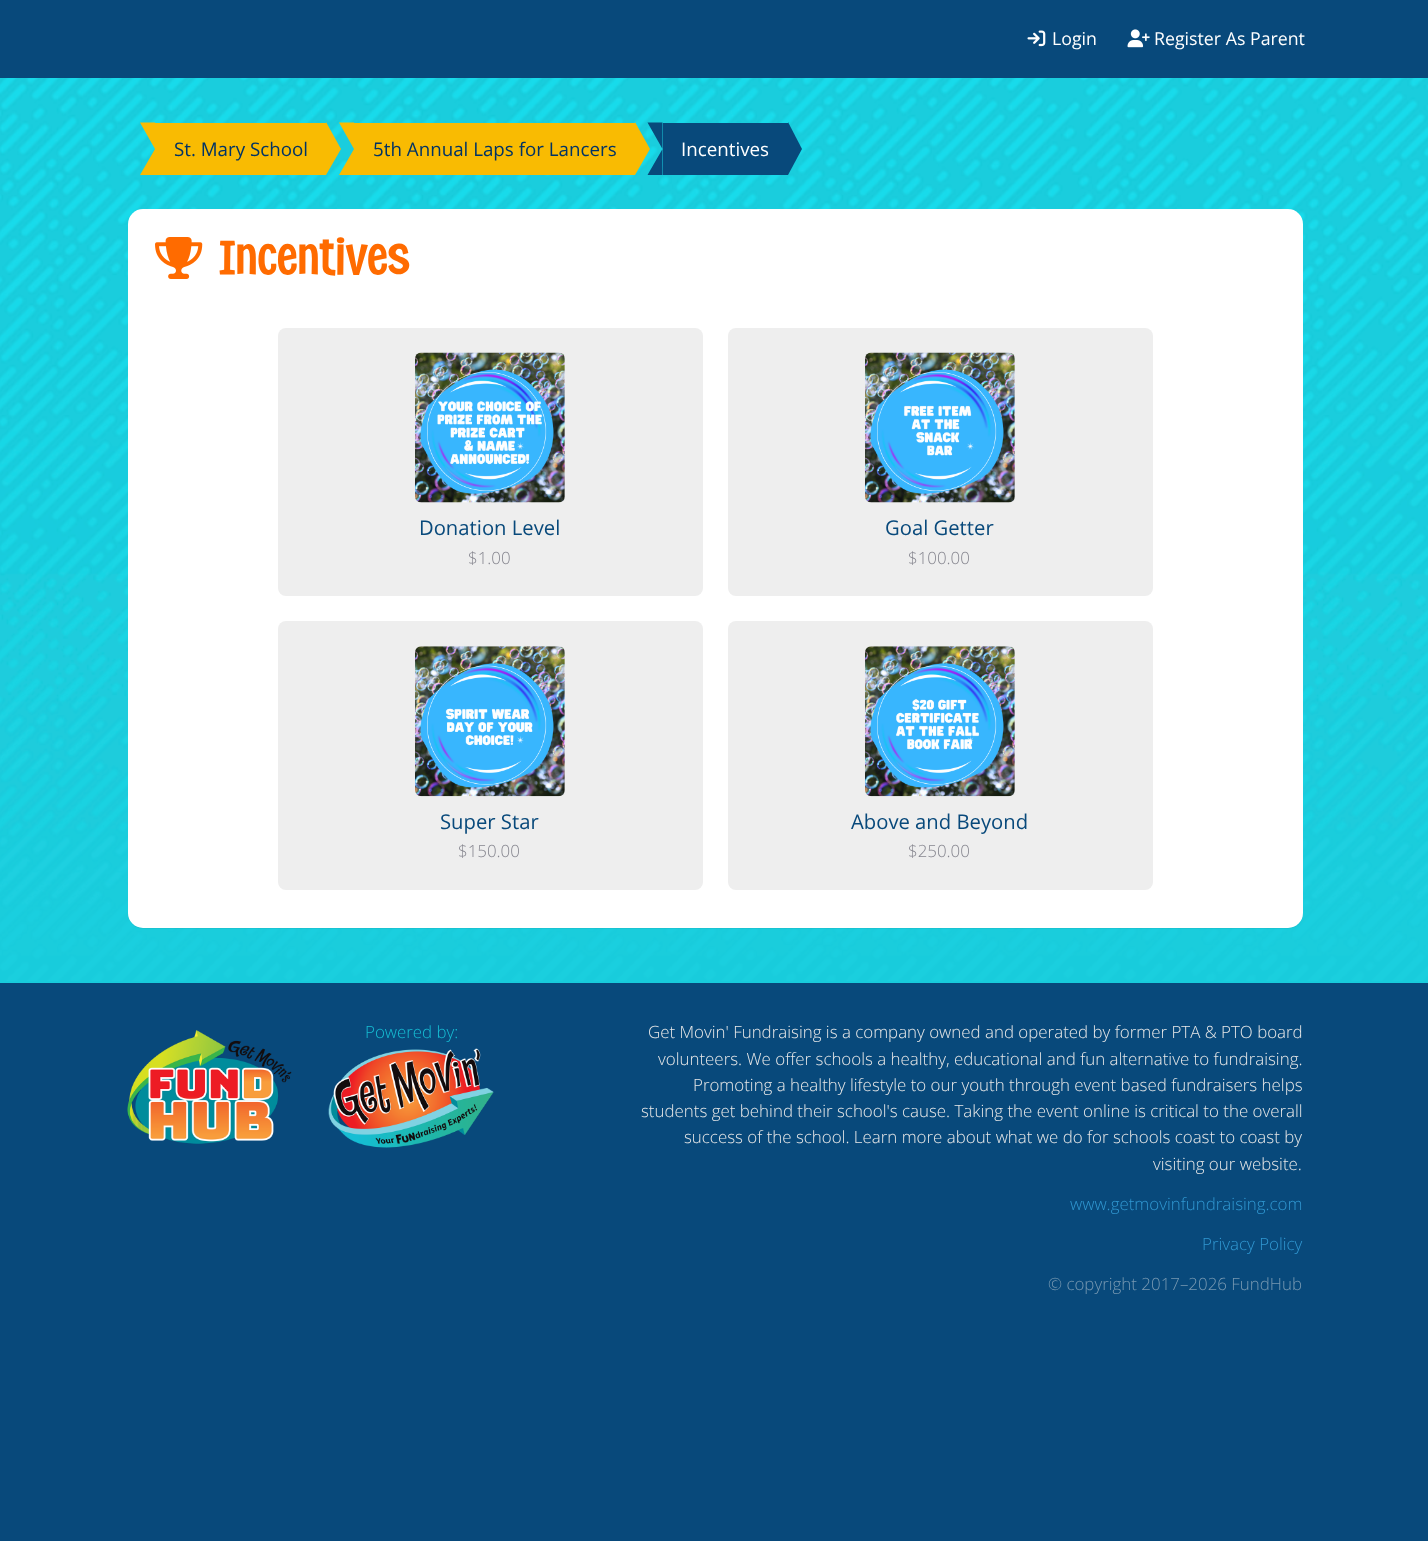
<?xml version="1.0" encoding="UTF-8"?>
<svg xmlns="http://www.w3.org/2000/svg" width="1428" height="1541">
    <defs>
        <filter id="blur1" x="-50%" y="-200%" width="200%" height="500%"><feGaussianBlur stdDeviation="0.5"/></filter>
    </defs>
    <rect width="100%" height="100%" fill="#08497B"/>
    <image x="1027" y="30" width="19" height="17" href="img_01.png"/>
    <text x="1052" y="45" font-family="Open Sans" font-size="17.75" fill="#FFFFFF">Login</text>
    <image x="1127" y="29" width="23" height="19" href="img_02.png"/>
    <text x="1154" y="45" font-family="Open Sans" font-size="17.75" fill="#FFFFFF">Register As Parent</text>
    <rect x="0" y="981" width="1428" height="2" fill="#18CCDC"/>
    <image x="0" y="78" width="1428" height="903" href="img_03.png"/>
    <rect x="155" y="123" width="171" height="52" fill="#F9BB02"/>
    <path d="M 140 122.5 H 155 V 149 Z M 155 175 H 140 L 155 149 Z" fill="#F9BB02"/>
    <text x="174" y="156" font-family="Open Sans" font-size="18.75" fill="#003366">St. Mary School</text>
    <path d="M 326 175 V 122 L 341 149 Z" fill="#F9BB02"/>
    <rect x="354" y="123" width="281" height="52" fill="#F9BB02"/>
    <path d="M 339 122.5 H 354 V 149 Z M 354 175 H 339 L 354 149 Z" fill="#F9BB02"/>
    <text x="373" y="156" font-family="Open Sans" font-size="18.75" fill="#003366">5th Annual Laps for Lancers</text>
    <path d="M 635 175 V 122 L 650 149 Z" fill="#F9BB02"/>
    <rect x="663" y="123" width="125" height="52" fill="#08497B"/>
    <path d="M 647.5 122.5 H 662.5 V 149 Z M 662.5 175 H 647.5 L 662.5 149 Z" fill="#08497B"/>
    <text x="681" y="156" font-family="Open Sans" font-size="18.75" fill="#FFFFFF">Incentives</text>
    <path d="M 788 175 V 122 L 802 149 Z" fill="#08497B"/>
    <rect x="128" y="210" width="1175" height="719" rx="15" fill="#000000" fill-opacity="0.05" filter="url(#blur1)"/>
    <rect x="128" y="209" width="1175" height="719" rx="15" fill="#FFFFFF"/>
    <image x="155" y="237" width="48" height="42" href="img_04.png"/>
    <text x="219" y="274" font-family="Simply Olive" font-size="60" fill="#FF6B00">Incentives</text>
    <rect x="278" y="328" width="425" height="268" rx="8" fill="#EEEEEE"/>
    <image x="415" y="352" width="150" height="151" href="img_05.png"/>
    <text x="419" y="535" font-family="Open Sans" font-size="20.25" fill="#08497B">Donation Level</text>
    <text x="468" y="564" font-family="Open Sans" font-size="16.9" font-weight="300" fill="#86868F">$1.00</text>
    <rect x="728" y="328" width="425" height="268" rx="8" fill="#EEEEEE"/>
    <image x="865" y="352" width="150" height="151" href="img_06.png"/>
    <text x="885" y="535" font-family="Open Sans" font-size="20.25" fill="#08497B">Goal Getter</text>
    <text x="908" y="564" font-family="Open Sans" font-size="16.9" font-weight="300" fill="#86868F">$100.00</text>
    <rect x="278" y="621" width="425" height="269" rx="8" fill="#EEEEEE"/>
    <image x="415" y="646" width="150" height="151" href="img_07.png"/>
    <text x="440" y="829" font-family="Open Sans" font-size="20.25" fill="#08497B">Super Star</text>
    <text x="458" y="857" font-family="Open Sans" font-size="16.9" font-weight="300" fill="#86868F">$150.00</text>
    <rect x="728" y="621" width="425" height="269" rx="8" fill="#EEEEEE"/>
    <image x="865" y="646" width="150" height="151" href="img_08.png"/>
    <text x="851" y="829" font-family="Open Sans" font-size="20.25" fill="#08497B">Above and Beyond</text>
    <text x="908" y="857" font-family="Open Sans" font-size="16.9" font-weight="300" fill="#86868F">$250.00</text>
    <image x="127" y="1030" width="165" height="114" href="img_09.png"/>
    <text x="365" y="1038" font-family="Open Sans" font-size="16.9" font-weight="300" fill="#16BED4">Powered by:</text>
    <image x="328" y="1048" width="166" height="100" href="img_10.png"/>
    <text x="648" y="1038" font-family="Open Sans" font-size="16.9" font-weight="300" fill="#E8E8E8">Get Movin' Fundraising is a company owned and operated by former PTA &amp; PTO board</text>
    <text x="658" y="1065" font-family="Open Sans" font-size="16.9" font-weight="300" fill="#E8E8E8">volunteers. We offer schools a healthy, educational and fun alternative to fundraising.</text>
    <text x="693" y="1091" font-family="Open Sans" font-size="16.9" font-weight="300" fill="#E8E8E8">Promoting a healthy lifestyle to our youth through event based fundraisers helps</text>
    <text x="641" y="1117" font-family="Open Sans" font-size="16.9" font-weight="300" fill="#E8E8E8">students get behind their school's cause. Taking the event online is critical to the overall</text>
    <text x="684" y="1143" font-family="Open Sans" font-size="16.9" font-weight="300" fill="#E8E8E8">success of the school. Learn more about what we do for schools coast to coast by</text>
    <text x="1153" y="1170" font-family="Open Sans" font-size="16.9" font-weight="300" fill="#E8E8E8">visiting our website.</text>
    <text x="1070" y="1210" font-family="Open Sans" font-size="16.9" font-weight="300" fill="#3097D1">www.getmovinfundraising.com</text>
    <text x="1202" y="1250" font-family="Open Sans" font-size="16.9" font-weight="300" fill="#3097D1">Privacy Policy</text>
    <text x="1048" y="1290" font-family="Open Sans" font-size="16.9" font-weight="300" fill="#7899B2">© copyright 2017–2026 FundHub</text>
</svg>
